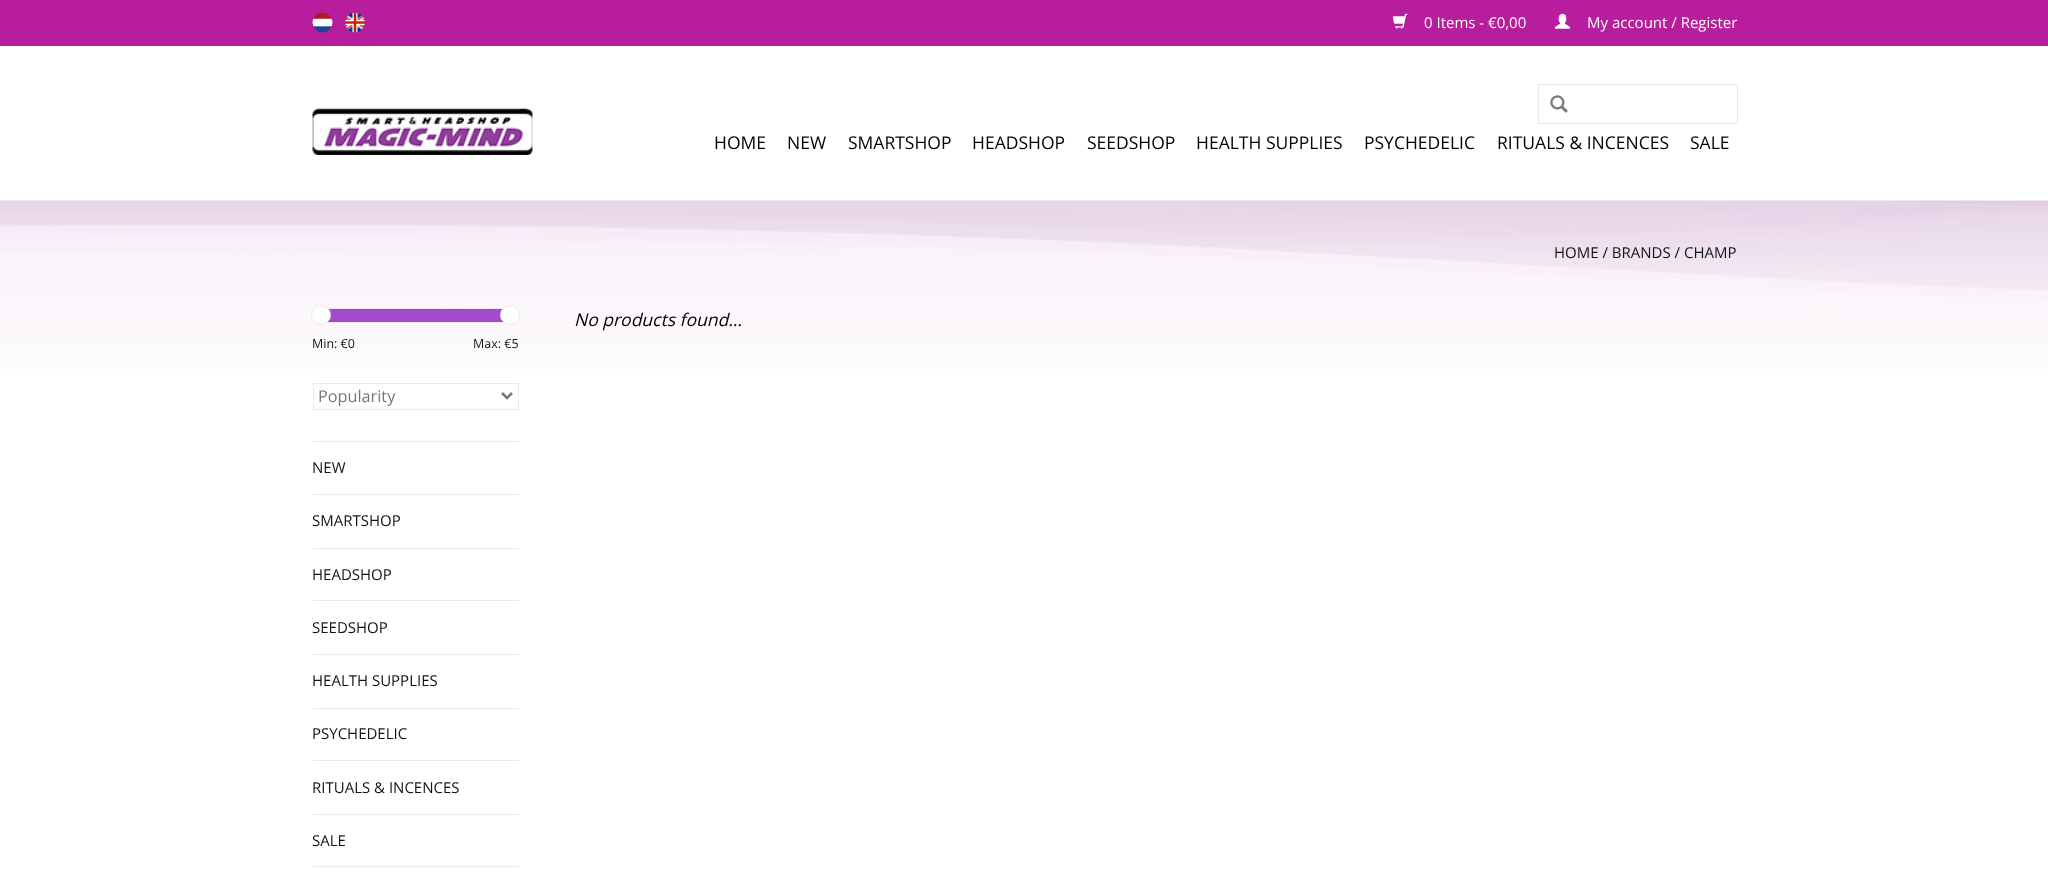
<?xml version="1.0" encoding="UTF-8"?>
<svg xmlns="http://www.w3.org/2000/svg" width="2048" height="894">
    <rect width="100%" height="100%" fill="#FFFFFF"/>
    <image x="0" y="201" width="2048" height="168" href="img_01.png"/>
    <rect x="0" y="200" width="2048" height="1" fill="#EAEAEA"/>
    <rect x="0" y="0" width="2048" height="45" fill="#B71D9C"/>
    <rect x="0" y="45" width="2048" height="1" fill="#AA1A91"/>
    <image x="312" y="12" width="21" height="21" href="img_02.png"/>
    <image x="345" y="12" width="20" height="21" href="img_03.png"/>
    <image x="1392" y="13" width="16" height="16" href="img_04.png"/>
    <text x="1424" y="28" font-family="Open Sans" font-size="15" fill="#FFFCFC">0 Items - €0,00</text>
    <image x="1555" y="13" width="15" height="16" href="img_05.png"/>
    <text x="1587" y="28" font-family="Open Sans" font-size="15" fill="#FFFCFC">My account / Register</text>
    <image x="312" y="108" width="221" height="47" href="img_06.png"/>
    <rect x="1538.5" y="84.5" width="199" height="39" fill="none" stroke="#EAEAEA"/>
    <image x="1550" y="95" width="18" height="18" href="img_07.png"/>
    <text x="714" y="149" font-family="Open Sans" font-size="17.5" fill="#000000">HOME</text>
    <text x="787" y="149" font-family="Open Sans" font-size="17.5" fill="#000000">NEW</text>
    <text x="848" y="149" font-family="Open Sans" font-size="17.5" fill="#000000">SMARTSHOP</text>
    <text x="972" y="149" font-family="Open Sans" font-size="17.5" fill="#000000">HEADSHOP</text>
    <text x="1087" y="149" font-family="Open Sans" font-size="17.5" fill="#000000">SEEDSHOP</text>
    <text x="1196" y="149" font-family="Open Sans" font-size="17.5" fill="#000000">HEALTH SUPPLIES</text>
    <text x="1364" y="149" font-family="Open Sans" font-size="17.5" fill="#000000">PSYCHEDELIC</text>
    <text x="1497" y="149" font-family="Open Sans" font-size="17.5" fill="#000000">RITUALS &amp; INCENCES</text>
    <text x="1690" y="149" font-family="Open Sans" font-size="17.5" fill="#000000">SALE</text>
    <text x="1554" y="258" font-family="Open Sans" font-size="15" fill="#141414">HOME / BRANDS / CHAMP</text>
    <text x="574" y="326" font-family="Open Sans" font-size="17.5" font-style="italic" fill="#000000">No products found...</text>
    <rect x="313" y="441" width="206" height="1" fill="#EAEAEA"/>
    <rect x="328" y="309" width="175" height="13" fill="#A748D1"/>
    <rect x="323.5" y="308.5" width="187" height="14" fill="none" stroke="#EAEAEA"/>
    <circle cx="321" cy="315" r="9.5" fill="#FEFEFE" stroke="#EAEAEA"/>
    <circle cx="510" cy="315" r="9.5" fill="#FEFEFE" stroke="#EAEAEA"/>
    <text x="312" y="348" font-family="Open Sans" font-size="12.5" fill="#141414">Min: €0</text>
    <text x="473" y="348" font-family="Open Sans" font-size="12.5" fill="#141414">Max: €5</text>
    <rect x="313.5" y="383.5" width="205" height="26" fill="none" stroke="#EAEAEA"/>
    <path d="M 502 393 L 507 398 L 512 393" fill="none" stroke="#777777" stroke-width="2.5"/>
    <text x="318" y="402" font-family="Open Sans" font-size="16.25" fill="#777777">Popularity</text>
    <rect x="313" y="494" width="206" height="1" fill="#EAEAEA"/>
    <text x="312" y="473" font-family="Open Sans" font-size="15" fill="#141414">NEW</text>
    <rect x="313" y="548" width="206" height="1" fill="#EAEAEA"/>
    <text x="312" y="526" font-family="Open Sans" font-size="15" fill="#141414">SMARTSHOP</text>
    <rect x="313" y="600" width="206" height="1" fill="#EAEAEA"/>
    <text x="312" y="580" font-family="Open Sans" font-size="15" fill="#141414">HEADSHOP</text>
    <rect x="313" y="654" width="206" height="1" fill="#EAEAEA"/>
    <text x="312" y="633" font-family="Open Sans" font-size="15" fill="#141414">SEEDSHOP</text>
    <rect x="313" y="708" width="206" height="1" fill="#EAEAEA"/>
    <text x="312" y="686" font-family="Open Sans" font-size="15" fill="#141414">HEALTH SUPPLIES</text>
    <rect x="313" y="760" width="206" height="1" fill="#EAEAEA"/>
    <text x="312" y="739" font-family="Open Sans" font-size="15" fill="#141414">PSYCHEDELIC</text>
    <rect x="313" y="814" width="206" height="1" fill="#EAEAEA"/>
    <text x="312" y="793" font-family="Open Sans" font-size="15" fill="#141414">RITUALS &amp; INCENCES</text>
    <rect x="313" y="866" width="206" height="1" fill="#EAEAEA"/>
    <text x="312" y="846" font-family="Open Sans" font-size="15" fill="#141414">SALE</text>
</svg>
